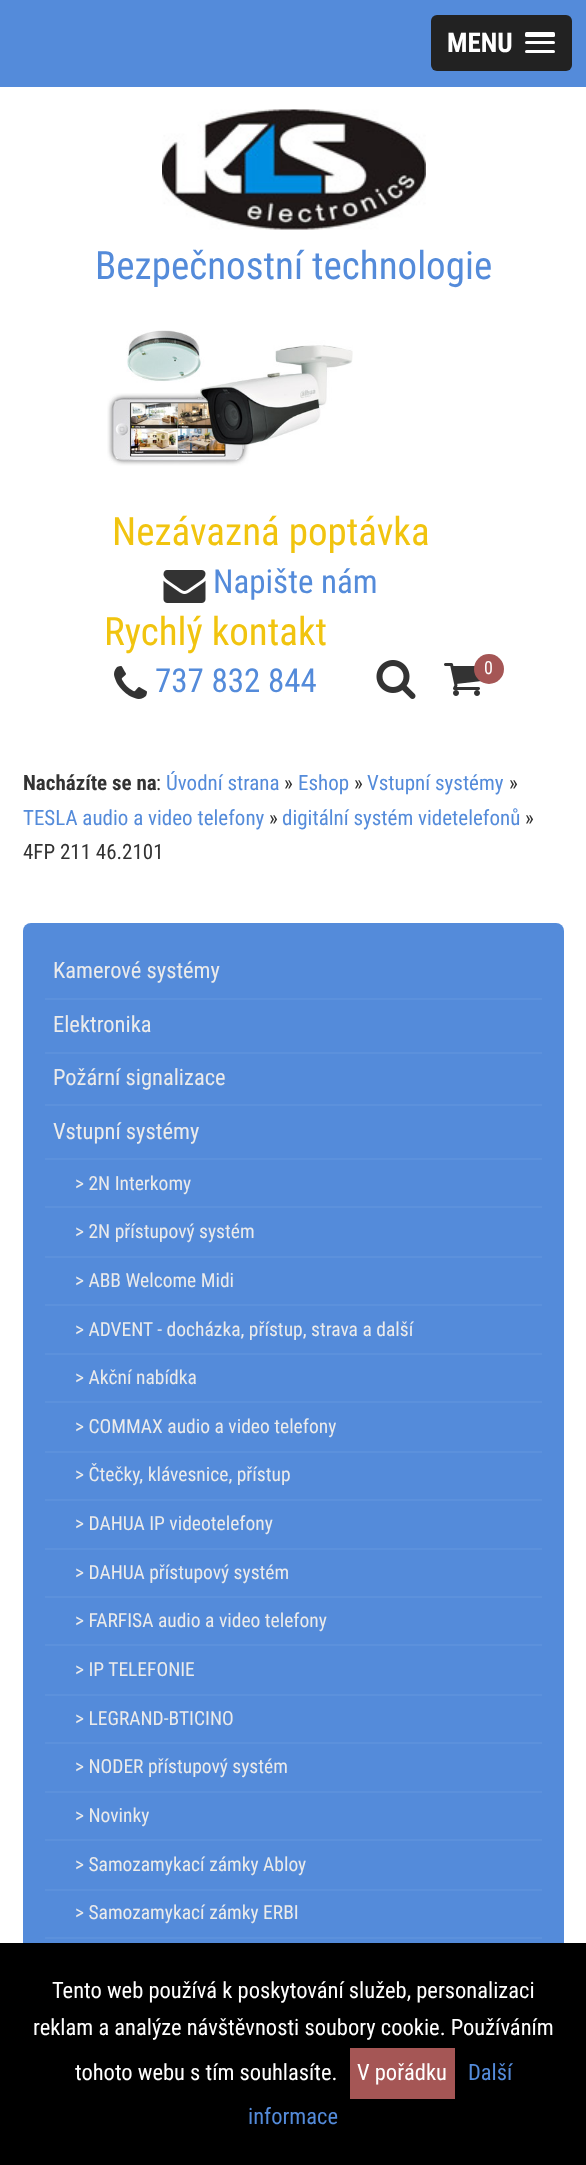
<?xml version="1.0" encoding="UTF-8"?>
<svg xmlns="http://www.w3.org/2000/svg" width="586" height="2165">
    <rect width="100%" height="100%" fill="#FFFFFF"/>
    <rect x="0" y="0" width="586" height="87" fill="#548BDA"/>
    <rect x="431" y="15" width="141" height="56" rx="6" fill="#222222"/>
    <text x="447" y="52" font-family="Roboto Condensed" font-size="27" font-weight="700" fill="#FFFFFF">MENU</text>
    <rect x="525" y="32" width="30" height="5" rx="1.5" fill="#FFFFFF"/>
    <rect x="525" y="41" width="30" height="3" rx="1.5" fill="#FFFFFF"/>
    <rect x="525" y="50" width="30" height="3" rx="1.5" fill="#FFFFFF"/>
    <image x="162" y="109" width="264" height="121" href="img_01.png"/>
    <text x="95" y="279" font-family="Roboto Condensed" font-size="39" fill="#548BDA">Bezpečnostní technologie</text>
    <image x="107" y="330" width="246" height="136" href="img_02.png"/>
    <text x="112" y="545" font-family="Roboto Condensed" font-size="39" fill="#F1C40F">Nezávazná poptávka</text>
    <image x="163" y="570" width="43" height="33" href="img_03.png"/>
    <text x="213" y="593" font-family="Roboto Condensed" font-size="33" fill="#548BDA">Napište nám</text>
    <text x="104" y="645" font-family="Roboto Condensed" font-size="39" fill="#F1C40F">Rychlý kontakt</text>
    <image x="114" y="666" width="33" height="33" href="img_04.png"/>
    <text x="155" y="692" font-family="Roboto Condensed" font-size="33" fill="#548BDA">737 832 844</text>
    <image x="376" y="660" width="40" height="39" href="img_05.png"/>
    <image x="444" y="663" width="38" height="33" href="img_06.png"/>
    <circle cx="489" cy="669" r="15" fill="#A55655"/>
    <text x="484" y="674" font-family="Roboto Condensed" font-size="18" fill="#FFFFFF">0</text>
    <text x="23" y="790" font-family="Roboto Condensed" font-size="21" font-weight="700" fill="#333333">Nacházíte se na</text>
    <text x="156" y="790" font-family="Roboto Condensed" font-size="21" fill="#333333">:</text>
    <text x="166" y="790" font-family="Roboto Condensed" font-size="21" fill="#548BDA">Úvodní strana</text>
    <text x="284" y="790" font-family="Roboto Condensed" font-size="21" fill="#333333">»</text>
    <text x="298" y="790" font-family="Roboto Condensed" font-size="21" fill="#548BDA">Eshop</text>
    <text x="354" y="790" font-family="Roboto Condensed" font-size="21" fill="#333333">»</text>
    <text x="367" y="790" font-family="Roboto Condensed" font-size="21" fill="#548BDA">Vstupní systémy</text>
    <text x="509" y="790" font-family="Roboto Condensed" font-size="21" fill="#333333">»</text>
    <text x="23" y="825" font-family="Roboto Condensed" font-size="21" fill="#548BDA">TESLA audio a video telefony</text>
    <text x="269" y="825" font-family="Roboto Condensed" font-size="21" fill="#333333">»</text>
    <text x="282" y="825" font-family="Roboto Condensed" font-size="21" fill="#548BDA">digitální systém videtelefonů</text>
    <text x="525" y="825" font-family="Roboto Condensed" font-size="21" fill="#333333">»</text>
    <text x="23" y="859" font-family="Roboto Condensed" font-size="21" fill="#333333">4FP 211 46.2101</text>
    <rect x="23" y="923" width="541" height="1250" rx="8" fill="#548BDA"/>
    <rect x="45" y="998" width="497" height="2" fill="#5C91DC"/>
    <text x="53" y="978" font-family="Roboto Condensed" font-size="22.5" fill="#EBEBEB">Kamerové systémy</text>
    <rect x="45" y="1052" width="497" height="2" fill="#5C91DC"/>
    <text x="53" y="1032" font-family="Roboto Condensed" font-size="22.5" fill="#EBEBEB">Elektronika</text>
    <rect x="45" y="1104" width="497" height="2" fill="#5C91DC"/>
    <text x="53" y="1085" font-family="Roboto Condensed" font-size="22.5" fill="#EBEBEB">Požární signalizace</text>
    <rect x="45" y="1158" width="497" height="2" fill="#5C91DC"/>
    <text x="53" y="1139" font-family="Roboto Condensed" font-size="22.5" fill="#EBEBEB">Vstupní systémy</text>
    <rect x="45" y="1206" width="497" height="2" fill="#5C91DC"/>
    <text x="75" y="1190" font-family="Roboto Condensed" font-size="19.5" fill="#EBEBEB">&gt; 2N Interkomy</text>
    <rect x="45" y="1256" width="497" height="2" fill="#5C91DC"/>
    <text x="75" y="1238" font-family="Roboto Condensed" font-size="19.5" fill="#EBEBEB">&gt; 2N přístupový systém</text>
    <rect x="45" y="1304" width="497" height="2" fill="#5C91DC"/>
    <text x="75" y="1287" font-family="Roboto Condensed" font-size="19.5" fill="#EBEBEB">&gt; ABB Welcome Midi</text>
    <rect x="45" y="1353" width="497" height="2" fill="#5C91DC"/>
    <text x="75" y="1336" font-family="Roboto Condensed" font-size="19.5" fill="#EBEBEB">&gt; ADVENT - docházka, přístup, strava a další</text>
    <rect x="45" y="1401" width="497" height="2" fill="#5C91DC"/>
    <text x="75" y="1384" font-family="Roboto Condensed" font-size="19.5" fill="#EBEBEB">&gt; Akční nabídka</text>
    <rect x="45" y="1451" width="497" height="2" fill="#5C91DC"/>
    <text x="75" y="1433" font-family="Roboto Condensed" font-size="19.5" fill="#EBEBEB">&gt; COMMAX audio a video telefony</text>
    <rect x="45" y="1499" width="497" height="2" fill="#5C91DC"/>
    <text x="75" y="1481" font-family="Roboto Condensed" font-size="19.5" fill="#EBEBEB">&gt; Čtečky, klávesnice, přístup</text>
    <rect x="45" y="1548" width="497" height="2" fill="#5C91DC"/>
    <text x="75" y="1530" font-family="Roboto Condensed" font-size="19.5" fill="#EBEBEB">&gt; DAHUA IP videotelefony</text>
    <rect x="45" y="1596" width="497" height="2" fill="#5C91DC"/>
    <text x="75" y="1579" font-family="Roboto Condensed" font-size="19.5" fill="#EBEBEB">&gt; DAHUA přístupový systém</text>
    <rect x="45" y="1644" width="497" height="2" fill="#5C91DC"/>
    <text x="75" y="1627" font-family="Roboto Condensed" font-size="19.5" fill="#EBEBEB">&gt; FARFISA audio a video telefony</text>
    <rect x="45" y="1694" width="497" height="2" fill="#5C91DC"/>
    <text x="75" y="1676" font-family="Roboto Condensed" font-size="19.5" fill="#EBEBEB">&gt; IP TELEFONIE</text>
    <rect x="45" y="1742" width="497" height="2" fill="#5C91DC"/>
    <text x="75" y="1725" font-family="Roboto Condensed" font-size="19.5" fill="#EBEBEB">&gt; LEGRAND-BTICINO</text>
    <rect x="45" y="1791" width="497" height="2" fill="#5C91DC"/>
    <text x="75" y="1773" font-family="Roboto Condensed" font-size="19.5" fill="#EBEBEB">&gt; NODER přístupový systém</text>
    <rect x="45" y="1839" width="497" height="2" fill="#5C91DC"/>
    <text x="75" y="1822" font-family="Roboto Condensed" font-size="19.5" fill="#EBEBEB">&gt; Novinky</text>
    <rect x="45" y="1889" width="497" height="2" fill="#5C91DC"/>
    <text x="75" y="1871" font-family="Roboto Condensed" font-size="19.5" fill="#EBEBEB">&gt; Samozamykací zámky Abloy</text>
    <rect x="45" y="1937" width="497" height="2" fill="#5C91DC"/>
    <text x="75" y="1919" font-family="Roboto Condensed" font-size="19.5" fill="#EBEBEB">&gt; Samozamykací zámky ERBI</text>
    <rect x="0" y="1943" width="586" height="222" fill="#000000"/>
    <text x="52" y="1998" font-family="Roboto Condensed" font-size="22.5" fill="#FFFFFF">Tento web používá k poskytování služeb, personalizaci</text>
    <text x="33" y="2035" font-family="Roboto Condensed" font-size="22.5" fill="#FFFFFF">reklam a analýze návštěvnosti soubory cookie. Používáním</text>
    <text x="75" y="2080" font-family="Roboto Condensed" font-size="22.5" fill="#FFFFFF">tohoto webu s tím souhlasíte.</text>
    <rect x="350" y="2048" width="105" height="51" fill="#A55655"/>
    <text x="357" y="2080" font-family="Roboto Condensed" font-size="22.5" fill="#FFFFFF">V pořádku</text>
    <text x="468" y="2080" font-family="Roboto Condensed" font-size="22.5" fill="#548BDA">Další</text>
    <text x="248" y="2124" font-family="Roboto Condensed" font-size="22.5" fill="#548BDA">informace</text>
</svg>
